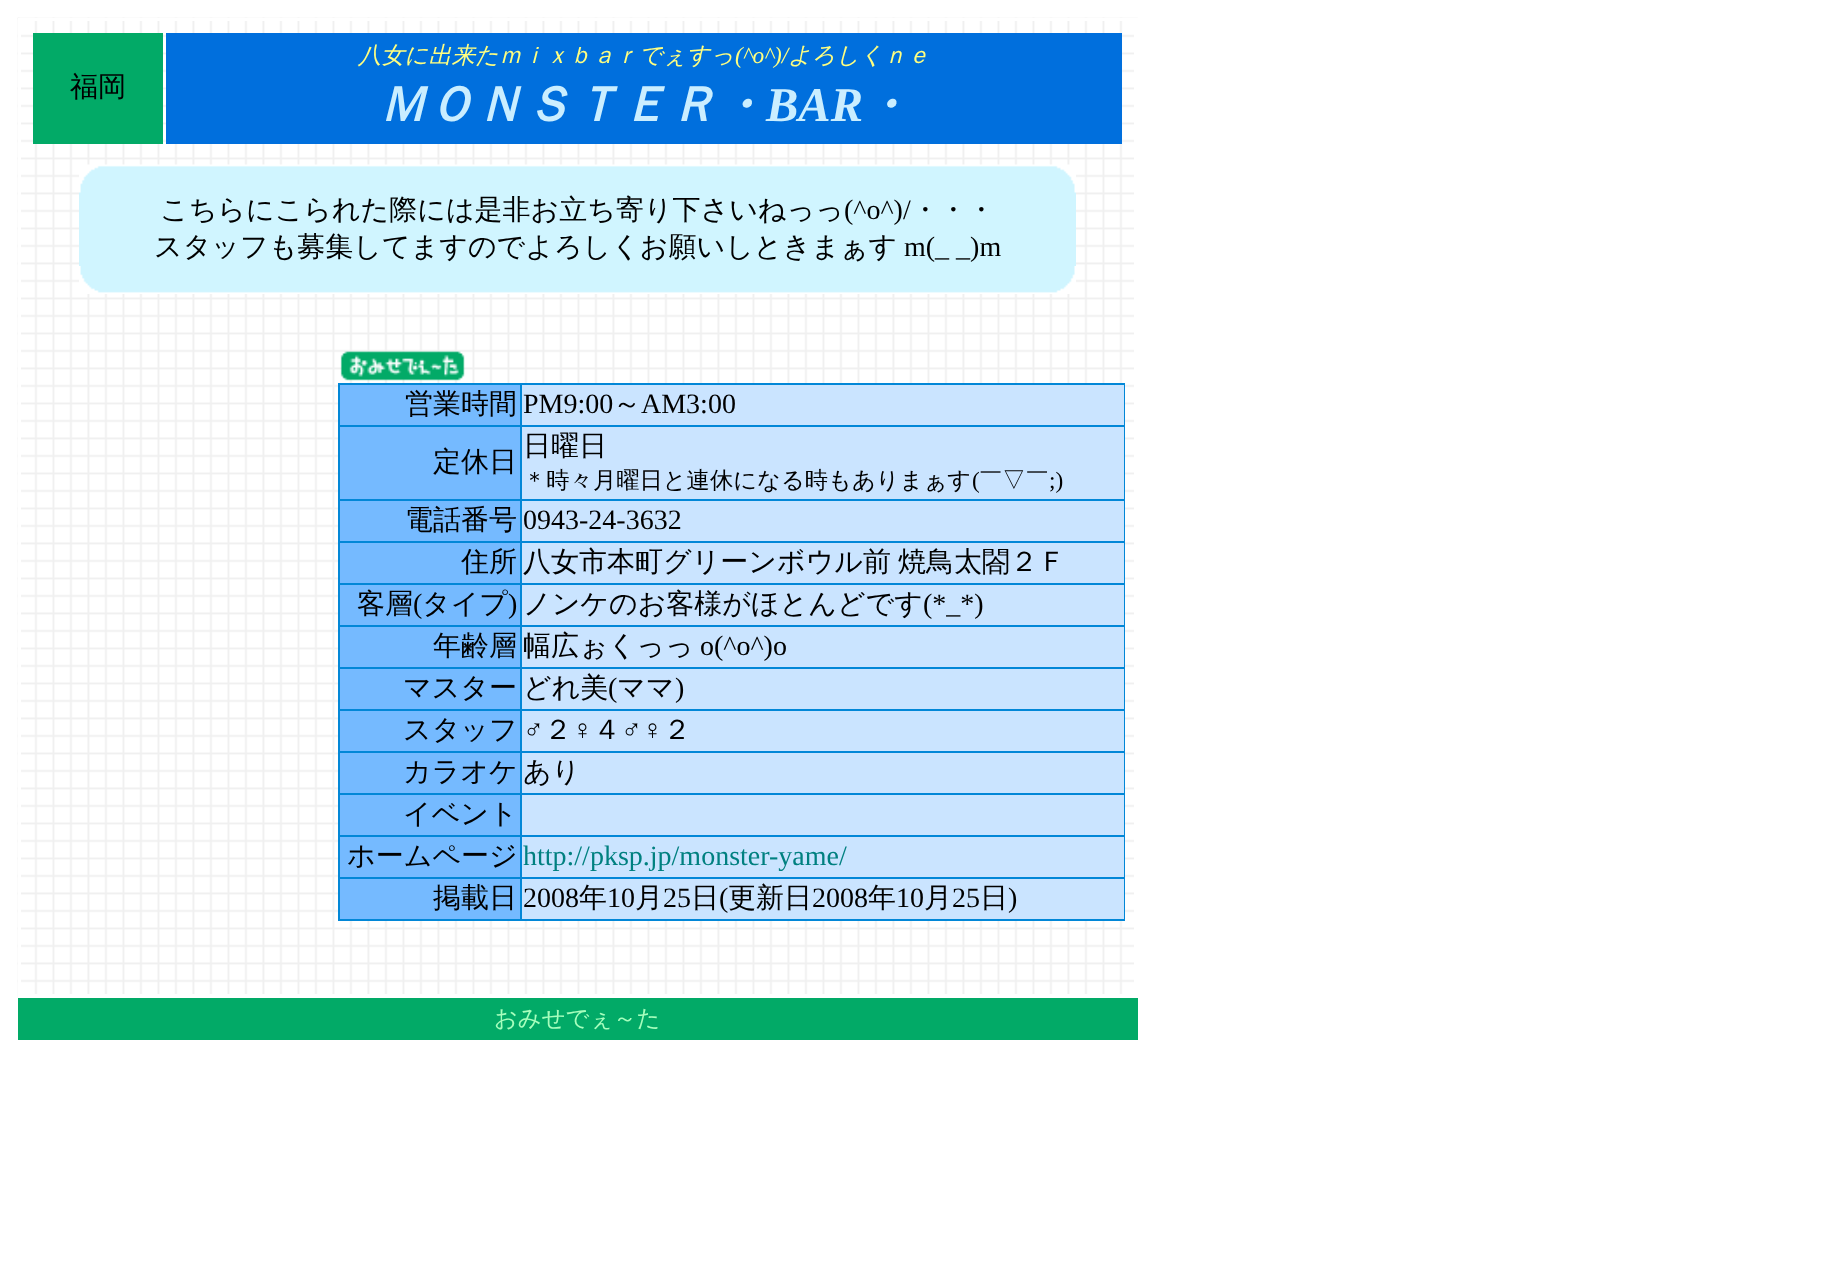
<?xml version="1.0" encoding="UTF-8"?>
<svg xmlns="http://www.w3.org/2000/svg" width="1830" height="1279">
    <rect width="100%" height="100%" fill="#FFFFFF"/>
    <image x="17" y="17" width="1121" height="981" href="img_01.png"/>
    <rect x="19" y="19" width="1118" height="978" fill="none" stroke="#FFFFFF" stroke-width="2"/>
    <rect x="20" y="20" width="1115" height="975" fill="none" stroke="#FFFFFF" stroke-width="2"/>
    <rect x="33" y="33" width="130" height="111" fill="#02AA67"/>
    <text x="70" y="96" font-family="WenQuanYi Zen Hei" font-size="28" font-weight="500" fill="#000000">福岡</text>
    <rect x="166" y="33" width="956" height="111" fill="#006FDD"/>
    <text x="358" y="63" font-family="WenQuanYi Zen Hei" font-size="23.3" font-weight="500" font-style="italic" fill="#FFFF80">八女に出来たｍｉｘｂａｒでぇすっ</text>
    <text x="735" y="63" font-family="Liberation Serif" font-size="23.3" font-style="italic" fill="#FFFF80">(^o^)/</text>
    <text x="788" y="63" font-family="WenQuanYi Zen Hei" font-size="23.3" font-weight="500" font-style="italic" fill="#FFFF80">よろしくｎｅ</text>
    <text x="378" y="121" font-family="WenQuanYi Zen Hei" font-size="48.5" font-weight="700" font-style="italic" fill="#CAEEFF">ＭＯＮＳＴＥＲ・</text>
    <text x="766" y="121" font-family="Liberation Serif" font-size="48.5" font-weight="700" font-style="italic" fill="#CAEEFF">BAR</text>
    <text x="862" y="121" font-family="WenQuanYi Zen Hei" font-size="48.5" font-weight="700" font-style="italic" fill="#CAEEFF">・</text>
    <rect x="79" y="165" width="997" height="128" fill="#D0F5FF"/>
    <image x="79" y="164" width="997" height="29" href="img_02.png"/>
    <text x="160" y="219" font-family="WenQuanYi Zen Hei" font-size="28" font-weight="500" fill="#000000">こちらにこられた際には是非お立ち寄り下さいねっっ</text>
    <text x="844" y="219" font-family="Liberation Serif" font-size="28" fill="#000000">(^o^)/</text>
    <text x="911" y="219" font-family="WenQuanYi Zen Hei" font-size="28" font-weight="500" fill="#000000">・・・</text>
    <text x="154" y="256" font-family="WenQuanYi Zen Hei" font-size="28" font-weight="500" fill="#000000">スタッフも募集してますのでよろしくお願いしときまぁす</text>
    <text x="904" y="256" font-family="Liberation Serif" font-size="28" fill="#000000">m(_ _)m</text>
    <image x="79" y="266" width="997" height="28" href="img_03.png"/>
    <image x="340" y="351" width="125" height="30" href="img_04.png"/>
    <rect x="338" y="383" width="787" height="538" fill="#0287D7"/>
    <rect x="340" y="385" width="180" height="40" fill="#75BAFF"/>
    <text x="405" y="413" font-family="WenQuanYi Zen Hei" font-size="28" font-weight="500" fill="#000000">営業時間</text>
    <rect x="522" y="385" width="602" height="40" fill="#CAE4FF"/>
    <text x="523" y="413" font-family="Liberation Serif" font-size="28" fill="#000000">PM9:00</text>
    <text x="613" y="413" font-family="WenQuanYi Zen Hei" font-size="28" font-weight="500" fill="#000000">～</text>
    <text x="641" y="413" font-family="Liberation Serif" font-size="28" fill="#000000">AM3:00</text>
    <rect x="340" y="427" width="180" height="72" fill="#75BAFF"/>
    <text x="433" y="471" font-family="WenQuanYi Zen Hei" font-size="28" font-weight="500" fill="#000000">定休日</text>
    <rect x="522" y="427" width="602" height="72" fill="#CAE4FF"/>
    <text x="523" y="455" font-family="WenQuanYi Zen Hei" font-size="28" font-weight="500" fill="#000000">日曜日</text>
    <text x="523" y="488" font-family="WenQuanYi Zen Hei" font-size="23.3" font-weight="500" fill="#000000">＊時々月曜日と連休になる時もありまぁす</text>
    <text x="972" y="488" font-family="Liberation Serif" font-size="23.3" fill="#000000">(</text>
    <text x="979" y="488" font-family="WenQuanYi Zen Hei" font-size="23.3" font-weight="500" fill="#000000">￣▽￣</text>
    <text x="1049" y="488" font-family="Liberation Serif" font-size="23.3" fill="#000000">;)</text>
    <rect x="340" y="501" width="180" height="40" fill="#75BAFF"/>
    <text x="405" y="529" font-family="WenQuanYi Zen Hei" font-size="28" font-weight="500" fill="#000000">電話番号</text>
    <rect x="522" y="501" width="602" height="40" fill="#CAE4FF"/>
    <text x="523" y="529" font-family="Liberation Serif" font-size="28" fill="#000000">0943-24-3632</text>
    <rect x="340" y="543" width="180" height="40" fill="#75BAFF"/>
    <text x="461" y="571" font-family="WenQuanYi Zen Hei" font-size="28" font-weight="500" fill="#000000">住所</text>
    <rect x="522" y="543" width="602" height="40" fill="#CAE4FF"/>
    <text x="523" y="571" font-family="WenQuanYi Zen Hei" font-size="28" font-weight="500" fill="#000000">八女市本町グリーンボウル前</text>
    <text x="898" y="571" font-family="WenQuanYi Zen Hei" font-size="28" font-weight="500" fill="#000000">焼鳥太閤２Ｆ</text>
    <rect x="340" y="585" width="180" height="40" fill="#75BAFF"/>
    <text x="357" y="613" font-family="WenQuanYi Zen Hei" font-size="28" font-weight="500" fill="#000000">客層</text>
    <text x="413" y="613" font-family="Liberation Serif" font-size="28" fill="#000000">(</text>
    <text x="422" y="613" font-family="WenQuanYi Zen Hei" font-size="28" font-weight="500" fill="#000000">タイプ</text>
    <text x="508" y="613" font-family="Liberation Serif" font-size="28" fill="#000000">)</text>
    <rect x="522" y="585" width="602" height="40" fill="#CAE4FF"/>
    <text x="523" y="613" font-family="WenQuanYi Zen Hei" font-size="28" font-weight="500" fill="#000000">ノンケのお客様がほとんどです</text>
    <text x="923" y="613" font-family="Liberation Serif" font-size="28" fill="#000000">(*_*)</text>
    <rect x="340" y="627" width="180" height="40" fill="#75BAFF"/>
    <text x="433" y="655" font-family="WenQuanYi Zen Hei" font-size="28" font-weight="500" fill="#000000">年齢層</text>
    <rect x="522" y="627" width="602" height="40" fill="#CAE4FF"/>
    <text x="523" y="655" font-family="WenQuanYi Zen Hei" font-size="28" font-weight="500" fill="#000000">幅広ぉくっっ</text>
    <text x="700" y="655" font-family="Liberation Serif" font-size="28" fill="#000000">o(^o^)o</text>
    <rect x="340" y="669" width="180" height="40" fill="#75BAFF"/>
    <text x="403" y="697" font-family="WenQuanYi Zen Hei" font-size="28" font-weight="500" fill="#000000">マスター</text>
    <rect x="522" y="669" width="602" height="40" fill="#CAE4FF"/>
    <text x="523" y="697" font-family="WenQuanYi Zen Hei" font-size="28" font-weight="500" fill="#000000">どれ美</text>
    <text x="608" y="697" font-family="Liberation Serif" font-size="28" fill="#000000">(</text>
    <text x="617" y="697" font-family="WenQuanYi Zen Hei" font-size="28" font-weight="500" fill="#000000">ママ</text>
    <text x="675" y="697" font-family="Liberation Serif" font-size="28" fill="#000000">)</text>
    <rect x="340" y="711" width="180" height="40" fill="#75BAFF"/>
    <text x="403" y="739" font-family="WenQuanYi Zen Hei" font-size="28" font-weight="500" fill="#000000">スタッフ</text>
    <rect x="522" y="711" width="602" height="40" fill="#CAE4FF"/>
    <text x="523" y="739" font-family="Liberation Serif" font-size="28" fill="#000000">♂</text>
    <text x="544" y="739" font-family="WenQuanYi Zen Hei" font-size="28" font-weight="500" fill="#000000">２</text>
    <text x="572" y="739" font-family="Liberation Serif" font-size="28" fill="#000000">♀</text>
    <text x="593" y="739" font-family="WenQuanYi Zen Hei" font-size="28" font-weight="500" fill="#000000">４</text>
    <text x="621" y="739" font-family="Liberation Serif" font-size="28" fill="#000000">♂♀</text>
    <text x="663" y="739" font-family="WenQuanYi Zen Hei" font-size="28" font-weight="500" fill="#000000">２</text>
    <rect x="340" y="753" width="180" height="40" fill="#75BAFF"/>
    <text x="403" y="781" font-family="WenQuanYi Zen Hei" font-size="28" font-weight="500" fill="#000000">カラオケ</text>
    <rect x="522" y="753" width="602" height="40" fill="#CAE4FF"/>
    <text x="523" y="781" font-family="WenQuanYi Zen Hei" font-size="28" font-weight="500" fill="#000000">あり</text>
    <rect x="340" y="795" width="180" height="40" fill="#75BAFF"/>
    <text x="403" y="823" font-family="WenQuanYi Zen Hei" font-size="28" font-weight="500" fill="#000000">イベント</text>
    <rect x="522" y="795" width="602" height="40" fill="#CAE4FF"/>
    <rect x="340" y="837" width="180" height="40" fill="#75BAFF"/>
    <text x="347" y="865" font-family="WenQuanYi Zen Hei" font-size="28" font-weight="500" fill="#000000">ホームページ</text>
    <rect x="522" y="837" width="602" height="40" fill="#CAE4FF"/>
    <text x="523" y="865" font-family="Liberation Serif" font-size="28" fill="#008080">http://pksp.jp/monster-yame/</text>
    <rect x="340" y="879" width="180" height="40" fill="#75BAFF"/>
    <text x="433" y="907" font-family="WenQuanYi Zen Hei" font-size="28" font-weight="500" fill="#000000">掲載日</text>
    <rect x="522" y="879" width="602" height="40" fill="#CAE4FF"/>
    <text x="523" y="907" font-family="Liberation Serif" font-size="28" fill="#000000">2008</text>
    <text x="579" y="907" font-family="WenQuanYi Zen Hei" font-size="28" font-weight="500" fill="#000000">年</text>
    <text x="607" y="907" font-family="Liberation Serif" font-size="28" fill="#000000">10</text>
    <text x="635" y="907" font-family="WenQuanYi Zen Hei" font-size="28" font-weight="500" fill="#000000">月</text>
    <text x="663" y="907" font-family="Liberation Serif" font-size="28" fill="#000000">25</text>
    <text x="691" y="907" font-family="WenQuanYi Zen Hei" font-size="28" font-weight="500" fill="#000000">日</text>
    <text x="719" y="907" font-family="Liberation Serif" font-size="28" fill="#000000">(</text>
    <text x="728" y="907" font-family="WenQuanYi Zen Hei" font-size="28" font-weight="500" fill="#000000">更新日</text>
    <text x="812" y="907" font-family="Liberation Serif" font-size="28" fill="#000000">2008</text>
    <text x="868" y="907" font-family="WenQuanYi Zen Hei" font-size="28" font-weight="500" fill="#000000">年</text>
    <text x="896" y="907" font-family="Liberation Serif" font-size="28" fill="#000000">10</text>
    <text x="924" y="907" font-family="WenQuanYi Zen Hei" font-size="28" font-weight="500" fill="#000000">月</text>
    <text x="952" y="907" font-family="Liberation Serif" font-size="28" fill="#000000">25</text>
    <text x="980" y="907" font-family="WenQuanYi Zen Hei" font-size="28" font-weight="500" fill="#000000">日</text>
    <text x="1008" y="907" font-family="Liberation Serif" font-size="28" fill="#000000">)</text>
    <rect x="18" y="998" width="1120" height="42" fill="#02AA67"/>
    <text x="494" y="1026" font-family="WenQuanYi Zen Hei" font-size="23.3" font-weight="500" fill="#A7FEBD">おみせでぇ～た</text>
</svg>
